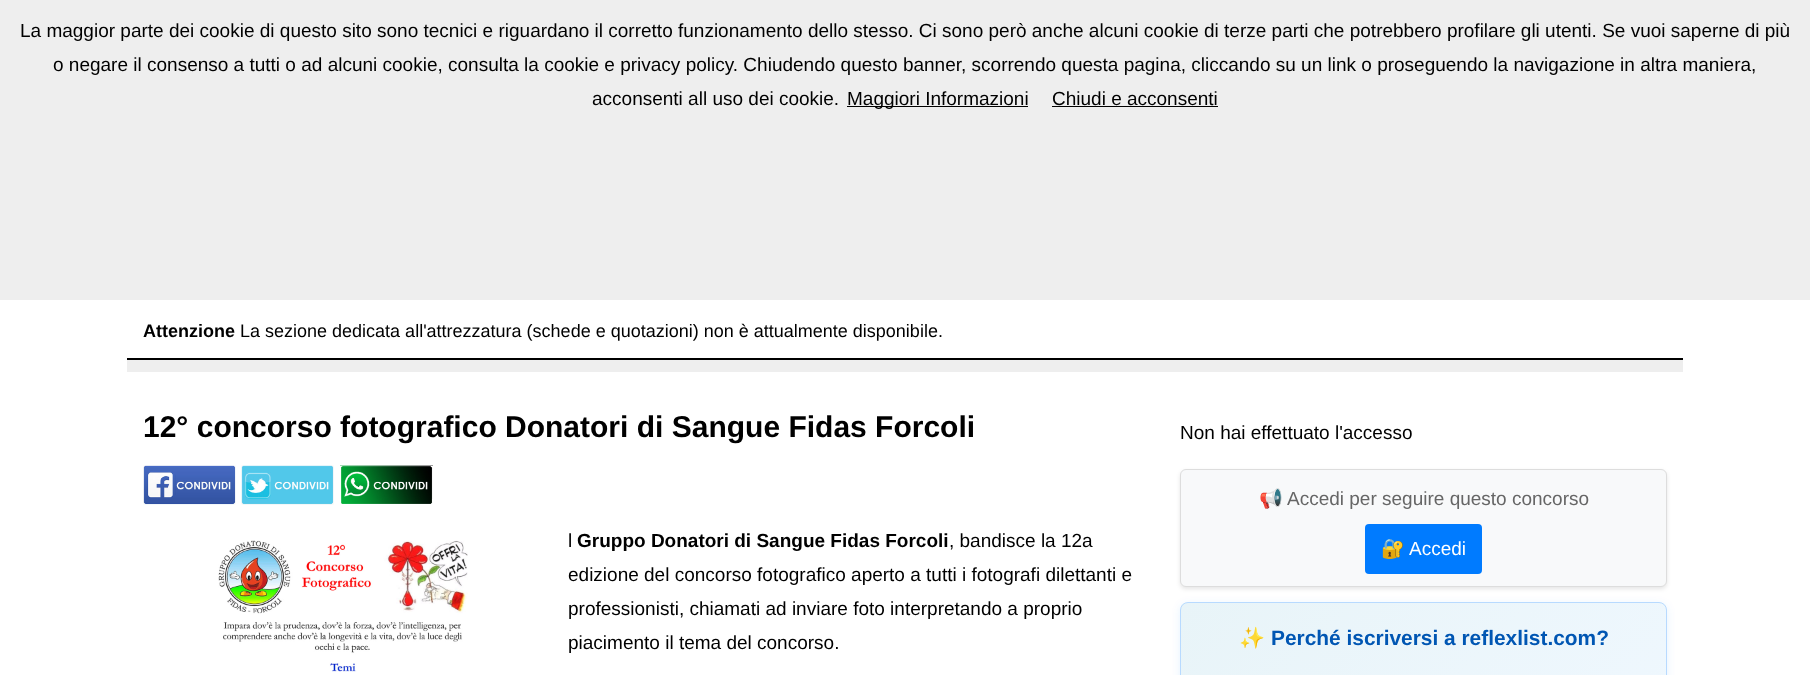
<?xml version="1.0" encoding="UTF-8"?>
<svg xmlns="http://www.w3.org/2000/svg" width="1810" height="675">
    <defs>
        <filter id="blur1" x="-50%" y="-200%" width="200%" height="500%"><feGaussianBlur stdDeviation="2"/></filter>
        <filter id="blur2" x="-50%" y="-200%" width="200%" height="500%"><feGaussianBlur stdDeviation="4"/></filter>
        <clipPath id="clip1"><rect x="1180" y="602" width="487" height="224" rx="8"/></clipPath>
        <linearGradient id="g1" gradientUnits="userSpaceOnUse" x1="1247" y1="537" x2="1600" y2="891"><stop offset="0" stop-color="#E8F4F8"/><stop offset="1" stop-color="#F0F8FF"/></linearGradient>
    </defs>
    <rect width="100%" height="100%" fill="#FFFFFF"/>
    <rect x="0" y="0" width="1810" height="300" fill="#EEEEEE"/>
    <text x="20" y="37" font-family="Liberation Sans" font-size="19" fill="#000000">La maggior parte dei cookie di questo sito sono tecnici e riguardano il corretto funzionamento dello stesso. Ci sono però anche alcuni cookie di terze parti che potrebbero profilare gli utenti. Se vuoi saperne di più</text>
    <text x="53" y="71" font-family="Liberation Sans" font-size="19" fill="#000000">o negare il consenso a tutti o ad alcuni cookie, consulta la cookie e privacy policy. Chiudendo questo banner, scorrendo questa pagina, cliccando su un link o proseguendo la navigazione in altra maniera,</text>
    <text x="592" y="105" font-family="Liberation Sans" font-size="19" fill="#000000">acconsenti all uso dei cookie.</text>
    <rect x="847" y="106" width="181" height="1" fill="#000000"/>
    <text x="847" y="105" font-family="Liberation Sans" font-size="19" fill="#000000">Maggiori Informazioni</text>
    <text x="1052" y="105" font-family="Liberation Sans" font-size="19" fill="#000000">Chiudi e acconsenti</text>
    <rect x="1052" y="106" width="166" height="1" fill="#000000"/>
    <text x="143" y="337" font-family="Liberation Sans" font-size="18" font-weight="700" fill="#000000">Attenzione</text>
    <text x="240" y="337" font-family="Liberation Sans" font-size="18" fill="#000000">La sezione dedicata all'attrezzatura (schede e quotazioni) non è attualmente disponibile.</text>
    <rect x="127" y="360" width="1556" height="12" fill="#EEEEEE"/>
    <rect x="127" y="358" width="1556" height="2" fill="#000000"/>
    <text x="143" y="437" font-family="Liberation Sans" font-size="30" font-weight="700" fill="#000000">12° concorso fotografico Donatori di Sangue Fidas Forcoli</text>
    <image x="143" y="465" width="93" height="40" href="img_01.png"/>
    <image x="241" y="465" width="93" height="40" href="img_02.png"/>
    <image x="340" y="465" width="93" height="39" href="img_03.png"/>
    <image x="218" y="540" width="250" height="132" href="img_04.png"/>
    <text x="568" y="547" font-family="Liberation Sans" font-size="19" fill="#000000">l</text>
    <text x="577" y="547" font-family="Liberation Sans" font-size="19" font-weight="700" fill="#000000">Gruppo Donatori di Sangue Fidas Forcoli</text>
    <text x="949" y="547" font-family="Liberation Sans" font-size="19" fill="#000000">, bandisce la 12a</text>
    <text font-family="Liberation Sans" font-size="19" fill="#000000">
        <tspan x="568" y="581">edizione del concorso fotografico aperto a tutti i fotografi dilettanti e</tspan>
        <tspan x="568" y="615">professionisti, chiamati ad inviare foto interpretando a proprio</tspan>
        <tspan x="568" y="649">piacimento il tema del concorso.</tspan>
    </text>
    <text x="1180" y="439" font-family="Liberation Sans" font-size="19" fill="#000000">Non hai effettuato l'accesso</text>
    <rect x="1180" y="471" width="487" height="118" rx="6" fill="#000000" fill-opacity="0.1" filter="url(#blur1)"/>
    <rect x="1180.5" y="469.5" width="486" height="117" rx="5.5" fill="#F8F9FA" stroke="#DDDDDD"/>
    <text x="1259" y="505" font-family="Noto Color Emoji" font-size="19" fill="#666666">📢</text>
    <text x="1287" y="505" font-family="Liberation Sans" font-size="19" fill="#666666">Accedi per seguire questo concorso</text>
    <rect x="1365" y="524" width="117" height="50" rx="4" fill="#007BFF"/>
    <text x="1381" y="555" font-family="Noto Color Emoji" font-size="19" fill="#FFFFFF">🔐</text>
    <text x="1409" y="555" font-family="Liberation Sans" font-size="19" fill="#FFFFFF">Accedi</text>
    <rect x="1180" y="604" width="487" height="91" rx="8" fill="#007BFF" fill-opacity="0.1" filter="url(#blur2)"/>
    <g clip-path="url(#clip1)">
        <rect x="1181" y="603" width="485" height="72" fill="url(#g1)"/>
    </g>
    <rect x="1180.5" y="602.5" width="486" height="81" rx="7.5" fill="none" stroke="#B8DAFF"/>
    <text x="1239" y="645" font-family="Noto Color Emoji" font-size="20.9" font-weight="700" fill="#0056B3">✨</text>
    <text x="1271" y="645" font-family="Liberation Sans" font-size="20.9" font-weight="700" fill="#0056B3">Perché iscriversi a reflexlist.com?</text>
</svg>
